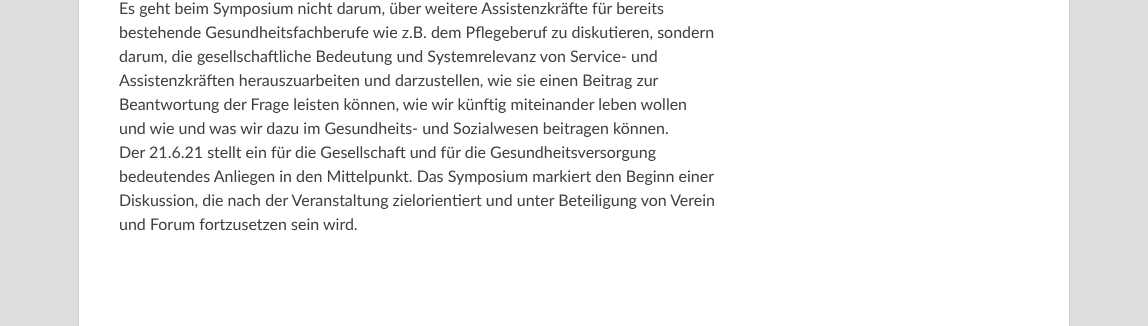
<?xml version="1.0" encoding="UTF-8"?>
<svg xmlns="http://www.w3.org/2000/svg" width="1148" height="326">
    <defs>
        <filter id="blur1" x="-50%" y="-200%" width="200%" height="500%"><feGaussianBlur stdDeviation="1"/></filter>
    </defs>
    <rect width="100%" height="100%" fill="#DDDDDD"/>
    <rect x="79" y="-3" width="990" height="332" fill="#BBBBBB" filter="url(#blur1)"/>
    <rect x="79" y="0" width="990" height="326" fill="#FFFFFF"/>
    <text font-family="Lato" font-size="16" fill="#404040">
        <tspan x="119" y="14">Es geht beim Symposium nicht darum, über weitere Assistenzkräfte für bereits</tspan>
        <tspan x="119" y="38">bestehende Gesundheitsfachberufe wie z.B. dem Pflegeberuf zu diskutieren, sondern</tspan>
        <tspan x="119" y="62">darum, die gesellschaftliche Bedeutung und Systemrelevanz von Service- und</tspan>
        <tspan x="119" y="86">Assistenzkräften herauszuarbeiten und darzustellen, wie sie einen Beitrag zur</tspan>
        <tspan x="119" y="110">Beantwortung der Frage leisten können, wie wir künftig miteinander leben wollen</tspan>
        <tspan x="119" y="134">und wie und was wir dazu im Gesundheits- und Sozialwesen beitragen können.</tspan>
        <tspan x="119" y="158">Der 21.6.21 stellt ein für die Gesellschaft und für die Gesundheitsversorgung</tspan>
        <tspan x="119" y="182">bedeutendes Anliegen in den Mittelpunkt. Das Symposium markiert den Beginn einer</tspan>
        <tspan x="119" y="206">Diskussion, die nach der Veranstaltung zielorientiert und unter Beteiligung von Verein</tspan>
        <tspan x="119" y="230">und Forum fortzusetzen sein wird.</tspan>
    </text>
</svg>
